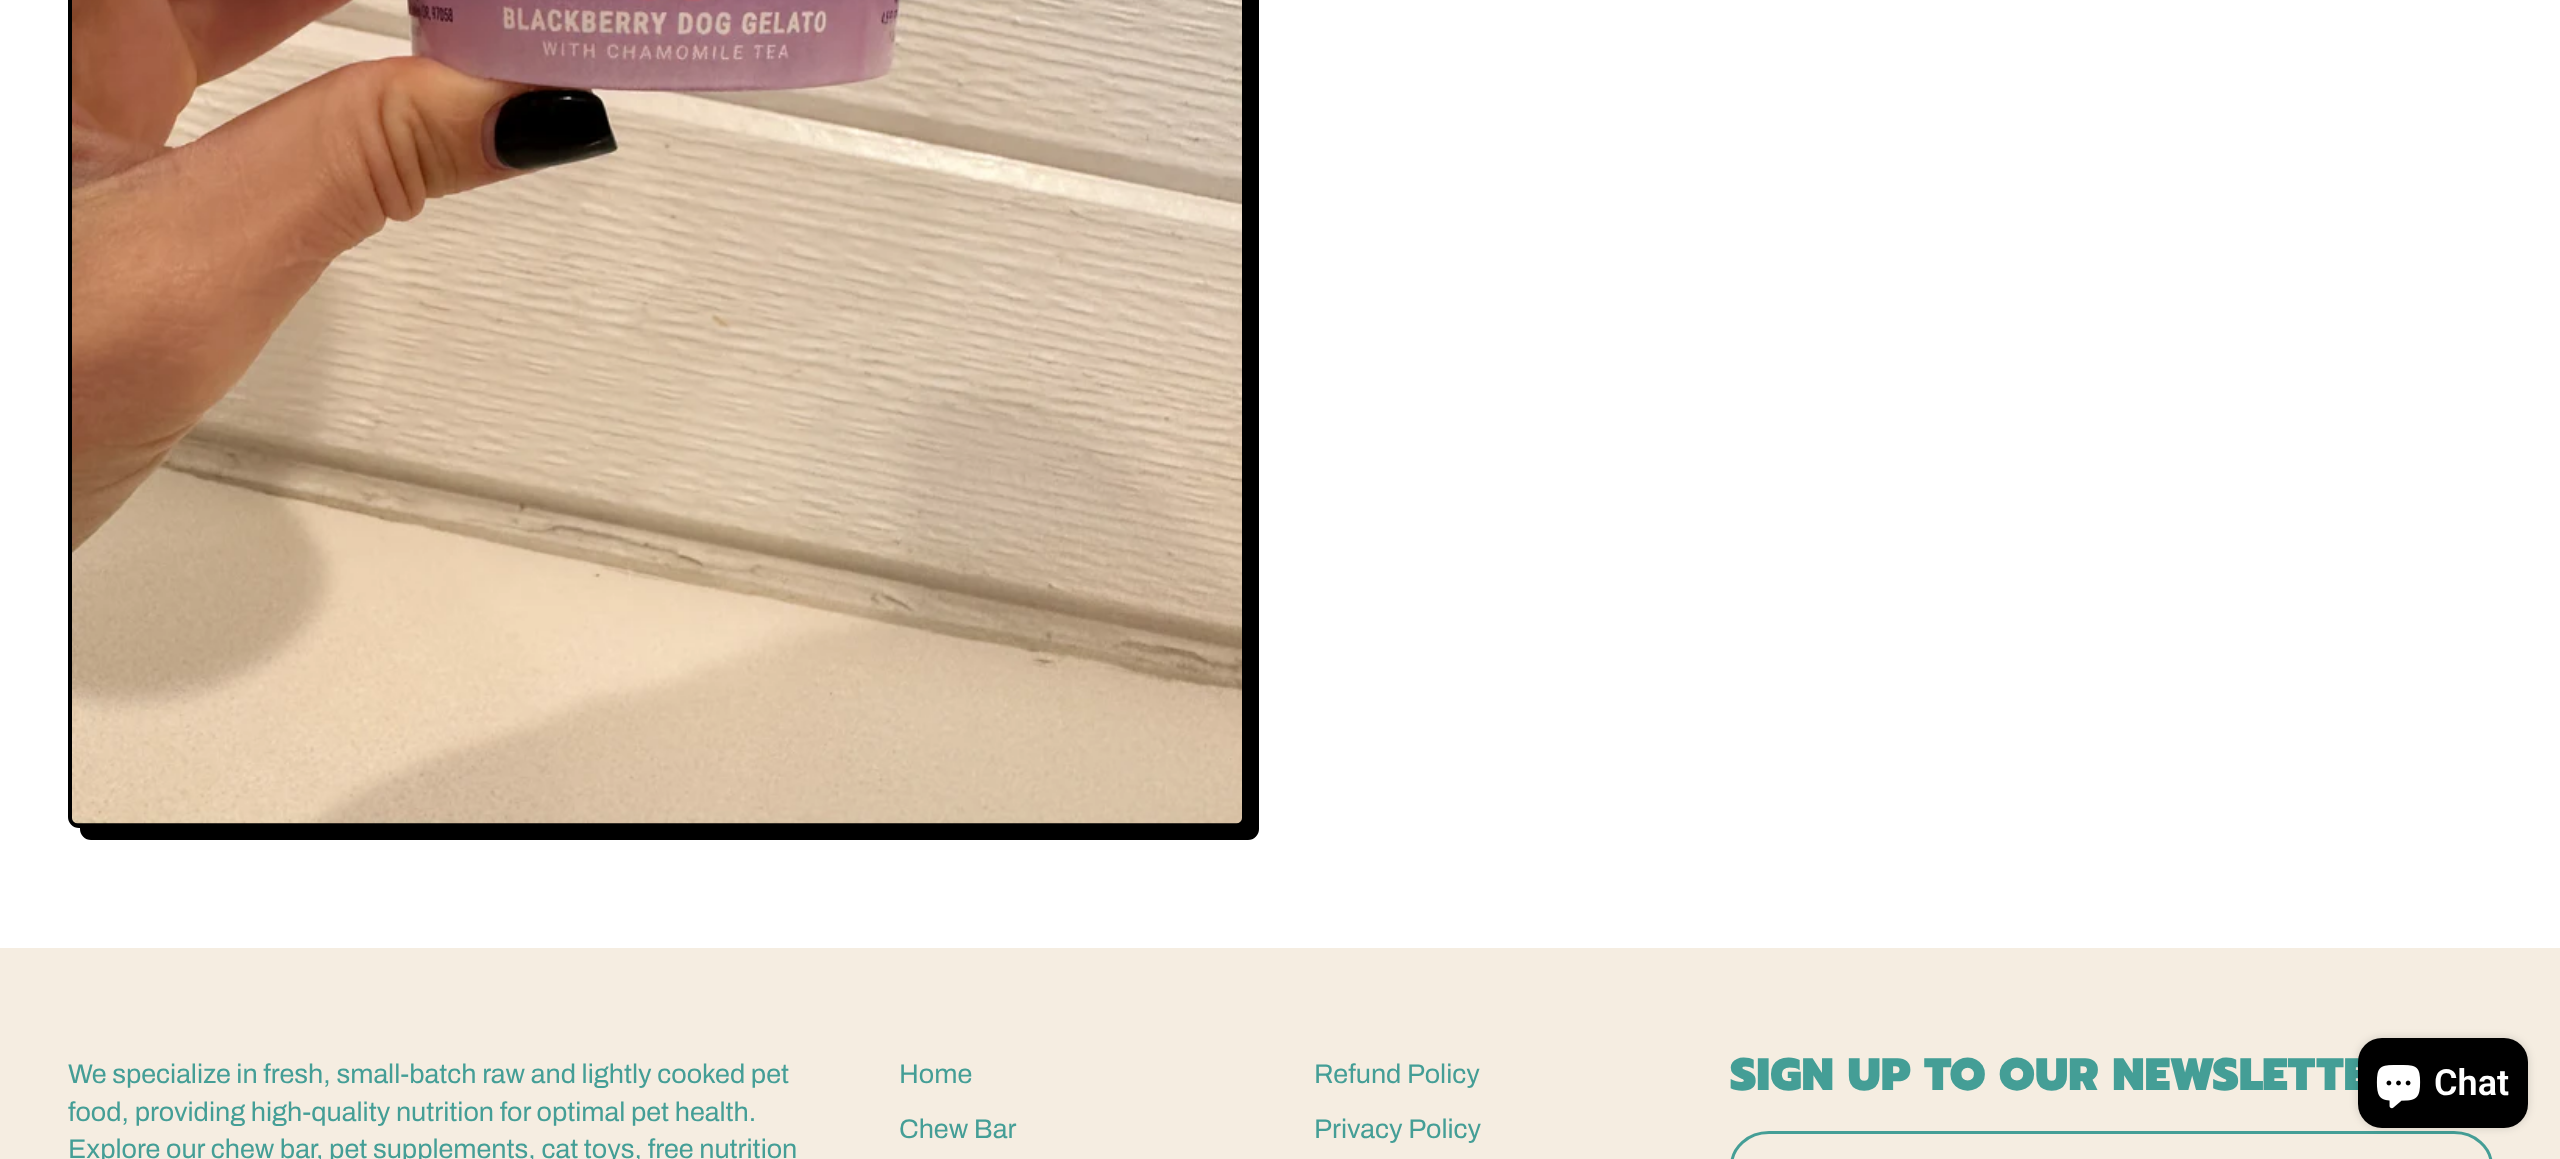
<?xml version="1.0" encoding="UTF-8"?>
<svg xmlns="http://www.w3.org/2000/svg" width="2560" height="1159">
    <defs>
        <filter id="blur1" x="-50%" y="-200%" width="200%" height="500%"><feGaussianBlur stdDeviation="4"/></filter>
    </defs>
    <rect width="100%" height="100%" fill="#FFFFFF"/>
    <rect x="82.5" y="-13.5" width="1174" height="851" rx="8.5" fill="#000000" stroke="#000000" stroke-width="5"/>
    <rect x="70.5" y="-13.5" width="1174" height="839" rx="8.5" fill="none" stroke="#000000" stroke-width="5"/>
    <image x="72" y="0" width="1170" height="824" href="img_01.png"/>
    <rect x="0" y="948" width="2560" height="211" fill="#F5EDE1"/>
    <text font-family="Archivo" font-size="27" fill="#449E96">
        <tspan x="68" y="1083">We specialize in fresh, small-batch raw and lightly cooked pet</tspan>
        <tspan x="68" y="1121">food, providing high-quality nutrition for optimal pet health.</tspan>
        <tspan x="68" y="1158">Explore our chew bar, pet supplements, cat toys, free nutrition</tspan>
    </text>
    <text x="899" y="1083" font-family="Archivo" font-size="27" fill="#449E96">Home</text>
    <text x="899" y="1138" font-family="Archivo" font-size="27" fill="#449E96">Chew Bar</text>
    <text x="1314" y="1083" font-family="Archivo" font-size="27" fill="#449E96">Refund Policy</text>
    <text x="1314" y="1138" font-family="Archivo" font-size="27" fill="#449E96">Privacy Policy</text>
    <text x="1730" y="1090" font-family="Prompt" font-size="45.4" font-weight="900" fill="#449E96">SIGN UP TO OUR NEWSLETTE</text>
    <rect x="1731.5" y="1132.5" width="760" height="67" rx="37.5" fill="none" stroke="#449E96" stroke-width="3"/>
    <rect x="2358" y="1038" width="170" height="90" rx="24" fill="#000000" fill-opacity="0.15" filter="url(#blur1)"/>
    <rect x="2358" y="1038" width="170" height="90" rx="24" fill="#000000"/>
    <image x="2376" y="1065" width="45" height="44" href="img_02.png"/>
    <text x="2434" y="1095" font-family="Roboto" font-size="36" font-weight="600" fill="#FFFFFF">Chat</text>
</svg>
